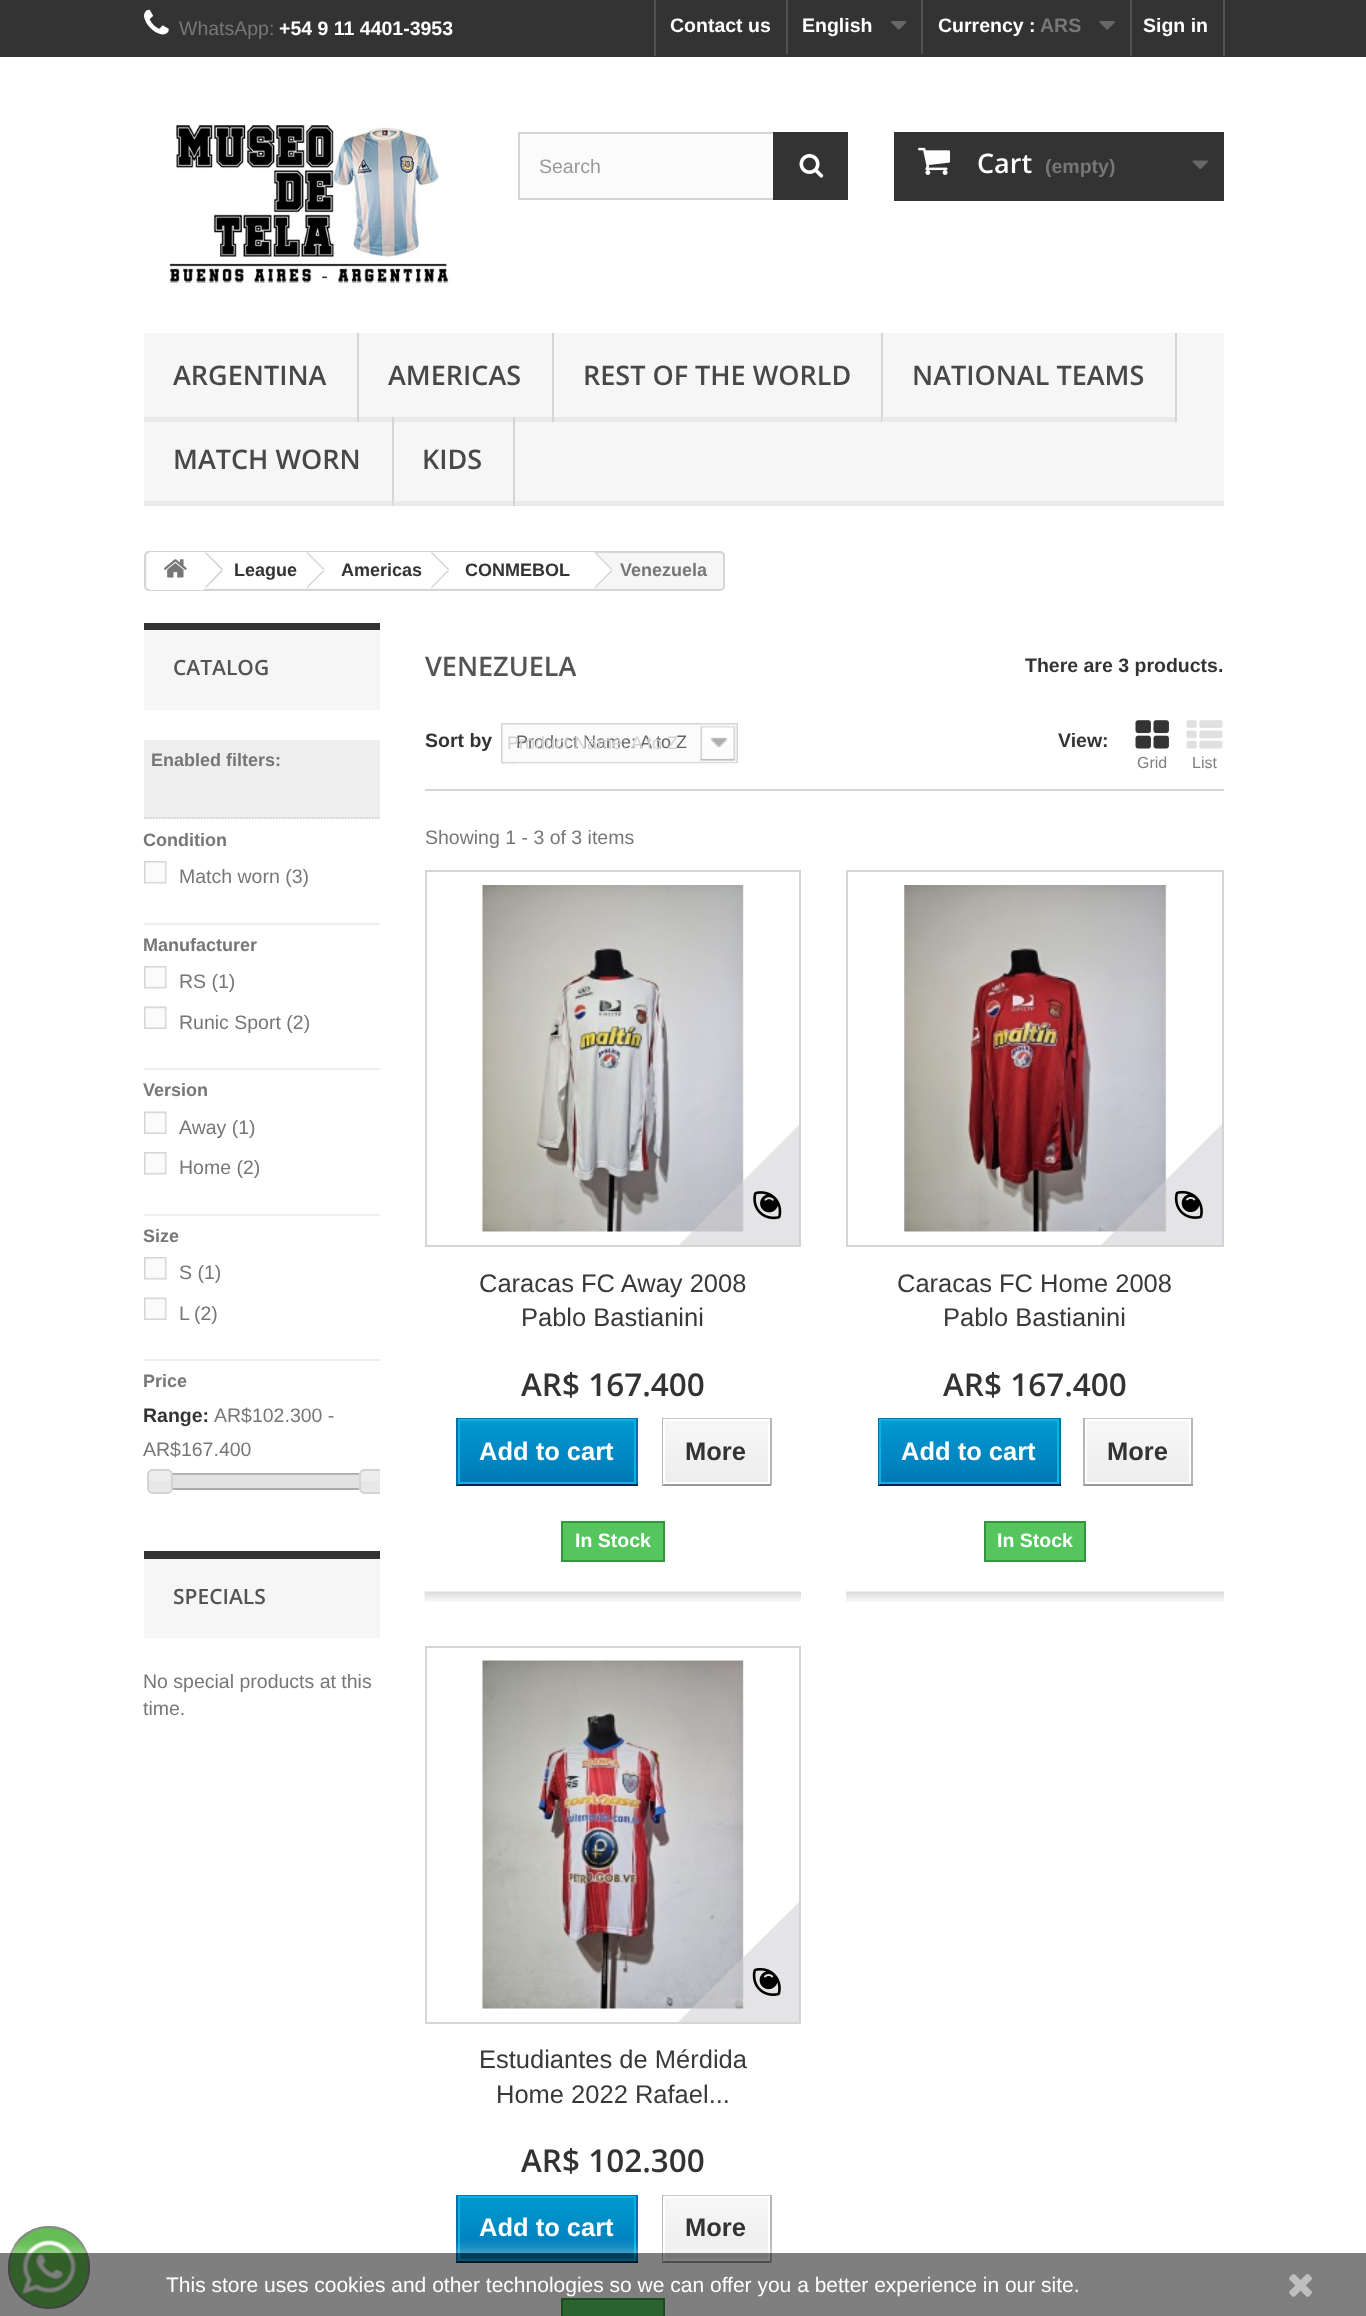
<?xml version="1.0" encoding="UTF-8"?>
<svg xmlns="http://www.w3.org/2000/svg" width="1366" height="2316">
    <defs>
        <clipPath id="clip1"><rect x="144" y="1395" width="236" height="111"/></clipPath>
        <clipPath id="clip2"><rect x="477" y="1013" width="323" height="232"/></clipPath>
        <linearGradient id="g1" gradientUnits="userSpaceOnUse" x1="547" y1="1421" x2="547" y2="1482"><stop offset="0" stop-color="#009AD0"/><stop offset="1" stop-color="#007AB7"/></linearGradient>
        <linearGradient id="g2" gradientUnits="userSpaceOnUse" x1="716" y1="1421" x2="716" y2="1482"><stop offset="0" stop-color="#F7F7F7"/><stop offset="1" stop-color="#EDEDED"/></linearGradient>
        <clipPath id="clip3"><rect x="900" y="1013" width="323" height="232"/></clipPath>
        <linearGradient id="g3" gradientUnits="userSpaceOnUse" x1="969" y1="1421" x2="969" y2="1482"><stop offset="0" stop-color="#009AD0"/><stop offset="1" stop-color="#007AB7"/></linearGradient>
        <linearGradient id="g4" gradientUnits="userSpaceOnUse" x1="1138" y1="1421" x2="1138" y2="1482"><stop offset="0" stop-color="#F7F7F7"/><stop offset="1" stop-color="#EDEDED"/></linearGradient>
        <clipPath id="clip4"><rect x="477" y="1790" width="323" height="232"/></clipPath>
        <linearGradient id="g5" gradientUnits="userSpaceOnUse" x1="547" y1="2198" x2="547" y2="2259"><stop offset="0" stop-color="#009AD0"/><stop offset="1" stop-color="#007AB7"/></linearGradient>
        <linearGradient id="g6" gradientUnits="userSpaceOnUse" x1="716" y1="2198" x2="716" y2="2259"><stop offset="0" stop-color="#F7F7F7"/><stop offset="1" stop-color="#EDEDED"/></linearGradient>
        <clipPath id="clip5"><rect x="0" y="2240" width="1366" height="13"/></clipPath>
        <filter id="blur1" x="-50%" y="-200%" width="200%" height="500%"><feGaussianBlur stdDeviation="7.5"/></filter>
    </defs>
    <rect width="100%" height="100%" fill="#FFFFFF"/>
    <rect x="0" y="0" width="1366" height="57" fill="#333333"/>
    <image x="144" y="9" width="25" height="26" href="img_01.png"/>
    <text x="179" y="35" font-family="Liberation Sans" font-size="19.5" fill="#777777">WhatsApp:</text>
    <text x="279" y="35" font-family="Liberation Sans" font-size="19.5" font-weight="700" fill="#FFFFFF">+54 9 11 4401-3953</text>
    <rect x="654" y="0" width="2" height="56" fill="#515151"/>
    <text x="670" y="32" font-family="Liberation Sans" font-size="19.5" font-weight="700" fill="#FFFFFF">Contact us</text>
    <rect x="786" y="0" width="2" height="54" fill="#515151"/>
    <text x="802" y="32" font-family="Liberation Sans" font-size="19.5" font-weight="700" fill="#FFFFFF">English</text>
    <image x="891" y="21" width="16" height="9" href="img_02.png"/>
    <rect x="921" y="0" width="2" height="54" fill="#515151"/>
    <text x="938" y="32" font-family="Liberation Sans" font-size="19.5" font-weight="700" fill="#FFFFFF">Currency :</text>
    <text x="1040" y="32" font-family="Liberation Sans" font-size="19.5" font-weight="700" fill="#777777">ARS</text>
    <image x="1099" y="21" width="16" height="9" href="img_03.png"/>
    <rect x="1223" y="0" width="2" height="56" fill="#515151"/>
    <rect x="1130" y="0" width="2" height="56" fill="#515151"/>
    <text x="1143" y="32" font-family="Liberation Sans" font-size="19.5" font-weight="700" fill="#FFFFFF">Sign in</text>
    <image x="169" y="124" width="280" height="163" href="img_04.png"/>
    <rect x="520" y="134" width="253" height="64" fill="#FBFBFB"/>
    <rect x="519" y="133" width="328" height="66" fill="none" stroke="#D6D4D4" stroke-width="2"/>
    <text x="539" y="173" font-family="Liberation Sans" font-size="19.5" fill="#999999">Search</text>
    <rect x="773" y="132" width="75" height="68" fill="#333333"/>
    <image x="799" y="154" width="25" height="24" href="img_05.png"/>
    <rect x="894" y="132" width="330" height="69" fill="#333333"/>
    <image x="918" y="147" width="33" height="28" href="img_06.png"/>
    <text x="977" y="173" font-family="Open Sans" font-size="27" font-weight="600" fill="#FFFFFF">Cart</text>
    <text x="1045" y="173" font-family="Liberation Sans" font-size="19.5" font-weight="700" fill="#777777">(empty)</text>
    <image x="1192" y="160" width="16" height="10" href="img_07.png"/>
    <rect x="144" y="333" width="1080" height="168" fill="#F6F6F6"/>
    <rect x="144" y="501" width="1080" height="5" fill="#E9E9E9"/>
    <rect x="357" y="333" width="2" height="89" fill="#D6D4D4"/>
    <rect x="144" y="417" width="213" height="5" fill="#E9E9E9"/>
    <text x="173" y="385" font-family="Open Sans" font-size="27" font-weight="600" fill="#484848">ARGENTINA</text>
    <rect x="552" y="333" width="2" height="89" fill="#D6D4D4"/>
    <rect x="359" y="417" width="193" height="5" fill="#E9E9E9"/>
    <text x="388" y="385" font-family="Open Sans" font-size="27" font-weight="600" fill="#484848">AMERICAS</text>
    <rect x="881" y="333" width="2" height="89" fill="#D6D4D4"/>
    <rect x="554" y="417" width="327" height="5" fill="#E9E9E9"/>
    <text x="583" y="385" font-family="Open Sans" font-size="27" font-weight="600" fill="#484848">REST OF THE WORLD</text>
    <rect x="1175" y="333" width="2" height="89" fill="#D6D4D4"/>
    <rect x="882" y="417" width="293" height="5" fill="#E9E9E9"/>
    <text x="912" y="385" font-family="Open Sans" font-size="27" font-weight="600" fill="#484848">NATIONAL TEAMS</text>
    <rect x="392" y="417" width="2" height="89" fill="#D6D4D4"/>
    <text x="173" y="469" font-family="Open Sans" font-size="27" font-weight="600" fill="#484848">MATCH WORN</text>
    <rect x="513" y="417" width="2" height="89" fill="#D6D4D4"/>
    <rect x="393" y="501" width="1" height="5" fill="#E9E9E9"/>
    <text x="422" y="469" font-family="Open Sans" font-size="27" font-weight="600" fill="#484848">KIDS</text>
    <rect x="145" y="552" width="579" height="38" rx="4" fill="#F6F6F6" stroke="#D6D4D4" stroke-width="2"/>
    <path d="M 152 552 H 204 V 590 H 152 C 149 590 147 588 147 585 V 557 C 147 554 149 552 152 552 Z" fill="#FFFFFF"/>
    <image x="163" y="559" width="24" height="19" href="img_08.png"/>
    <rect x="204" y="552" width="104" height="36" fill="#FFFFFF"/>
    <path d="M 206 552 L 223 569 L 221.5 570 L 205 553 Z M 221.5 570 L 223 571 L 206 588 L 205 587 Z" fill="#D6D4D4"/>
    <text x="234" y="576" font-family="Liberation Sans" font-size="18" font-weight="700" fill="#333333">League</text>
    <path d="M 323.5 553 L 338.5 567.5 C 339.5 569 339.5 571 338.5 572 L 323.5 587 C 322.5 588 320.5 588 319 587 L 304.5 572 C 303 571 303 569 304.5 567.5 L 319 553 C 320.5 551.5 322.5 551.5 323.5 553 Z" fill="#FFFFFF"/>
    <rect x="308" y="552" width="124" height="36" fill="#FFFFFF"/>
    <path d="M 307.5 552 L 324.5 569 L 323.5 570 L 306.5 553 Z M 323.5 570 L 324.5 571 L 307.5 588 L 306.5 587 Z" fill="#D6D4D4"/>
    <text x="341" y="576" font-family="Liberation Sans" font-size="18" font-weight="700" fill="#333333">Americas</text>
    <path d="M 448 553 L 463 567.5 C 464 569 464 571 463 572 L 448 587 C 447 588 445 588 444 587 L 429 572 C 427.5 571 427.5 569 429 567.5 L 444 553 C 445 551.5 447 551.5 448 553 Z" fill="#FFFFFF"/>
    <rect x="432" y="552" width="161" height="36" fill="#FFFFFF"/>
    <path d="M 432 552 L 449 569 L 448 570 L 431 553 Z M 448 570 L 449 571 L 432 588 L 431 587 Z" fill="#D6D4D4"/>
    <text x="465" y="576" font-family="Liberation Sans" font-size="18" font-weight="700" fill="#333333">CONMEBOL</text>
    <path d="M 596.5 553 L 611.5 567.5 C 612.5 569 612.5 571 611.5 572 L 596.5 587 C 595.5 588 593.5 588 592.5 587 L 577.5 572 C 576 571 576 569 577.5 567.5 L 592.5 553 C 593.5 551.5 595.5 551.5 596.5 553 Z" fill="#FFFFFF"/>
    <path d="M 595.5 552 L 612.5 569 L 611.5 570 L 594.5 553 Z M 611.5 570 L 612.5 571 L 595.5 588 L 594.5 587 Z" fill="#D6D4D4"/>
    <text x="620" y="576" font-family="Liberation Sans" font-size="18" font-weight="700" fill="#777777">Venezuela</text>
    <rect x="144" y="630" width="236" height="80" fill="#F6F6F6"/>
    <rect x="144" y="623" width="236" height="7" fill="#333333"/>
    <text x="173" y="675" font-family="Open Sans" font-size="21" font-weight="600" fill="#555454">CATALOG</text>
    <rect x="144" y="740" width="236" height="79" fill="#EEEEEE"/>
    <path d="M 144 818 H 379.5" fill="none" stroke="#CCCCCC" stroke-width="1.5" stroke-dasharray="1.5 1.5"/>
    <text x="151" y="766" font-family="Liberation Sans" font-size="18" font-weight="700" fill="#777777">Enabled filters:</text>
    <rect x="144" y="923" width="236" height="2" fill="#EEEEEE"/>
    <text x="143" y="846" font-family="Liberation Sans" font-size="18" font-weight="700" fill="#777777">Condition</text>
    <image x="144" y="861" width="23" height="23" href="img_09.png"/>
    <text x="179" y="883" font-family="Liberation Sans" font-size="19.5" fill="#777777">Match worn (3)</text>
    <rect x="144" y="1068" width="236" height="2" fill="#EEEEEE"/>
    <text x="143" y="951" font-family="Liberation Sans" font-size="18" font-weight="700" fill="#777777">Manufacturer</text>
    <image x="144" y="966" width="23" height="23" href="img_09.png"/>
    <text x="179" y="988" font-family="Liberation Sans" font-size="19.5" fill="#777777">RS (1)</text>
    <image x="144" y="1006" width="23" height="23" href="img_10.png"/>
    <text x="179" y="1029" font-family="Liberation Sans" font-size="19.5" fill="#777777">Runic Sport (2)</text>
    <rect x="144" y="1214" width="236" height="2" fill="#EEEEEE"/>
    <text x="143" y="1096" font-family="Liberation Sans" font-size="18" font-weight="700" fill="#777777">Version</text>
    <image x="144" y="1111" width="23" height="23" href="img_10.png"/>
    <text x="179" y="1134" font-family="Liberation Sans" font-size="19.5" fill="#777777">Away (1)</text>
    <image x="144" y="1152" width="23" height="23" href="img_09.png"/>
    <text x="179" y="1174" font-family="Liberation Sans" font-size="19.5" fill="#777777">Home (2)</text>
    <rect x="144" y="1359" width="236" height="2" fill="#EEEEEE"/>
    <text x="143" y="1242" font-family="Liberation Sans" font-size="18" font-weight="700" fill="#777777">Size</text>
    <image x="144" y="1257" width="23" height="23" href="img_09.png"/>
    <text x="179" y="1279" font-family="Liberation Sans" font-size="19.5" fill="#777777">S (1)</text>
    <image x="144" y="1297" width="23" height="23" href="img_10.png"/>
    <text x="179" y="1320" font-family="Liberation Sans" font-size="19.5" fill="#777777">L</text>
    <text x="194" y="1320" font-family="Liberation Sans" font-size="19.5" fill="#777777">(2)</text>
    <text x="143" y="1387" font-family="Liberation Sans" font-size="18" font-weight="700" fill="#777777">Price</text>
    <text x="143" y="1422" font-family="Liberation Sans" font-size="19.5" font-weight="700" fill="#333333">Range:</text>
    <text x="214" y="1422" font-family="Liberation Sans" font-size="19.5" fill="#777777">AR$102.300 -</text>
    <text x="143" y="1456" font-family="Liberation Sans" font-size="19.5" fill="#777777">AR$167.400</text>
    <rect x="160" y="1474" width="213" height="15" fill="none" stroke="#AAAAAA" stroke-width="2"/>
    <image x="147" y="1468" width="25" height="26" href="img_11.png"/>
    <image x="172" y="1474" width="187" height="14" href="img_12.png"/>
    <rect x="148" y="1470" width="24" height="23" rx="5" fill="none" stroke="#D3D3D3" stroke-width="2"/>
    <g clip-path="url(#clip1)">
        <rect x="359" y="1469" width="25" height="25" rx="6" fill="#E6E6E6"/>
    </g>
    <image x="358" y="1468" width="21" height="26" href="img_13.png"/>
    <g clip-path="url(#clip1)">
        <rect x="360" y="1470" width="23" height="23" rx="5" fill="none" stroke="#D3D3D3" stroke-width="2"/>
    </g>
    <rect x="144" y="1559" width="236" height="79" fill="#F6F6F6"/>
    <rect x="144" y="1551" width="236" height="8" fill="#333333"/>
    <text x="173" y="1604" font-family="Open Sans" font-size="21" font-weight="600" fill="#555454">SPECIALS</text>
    <text font-family="Liberation Sans" font-size="19.5" fill="#777777">
        <tspan x="143" y="1688">No special products at this</tspan>
        <tspan x="143" y="1715">time.</tspan>
    </text>
    <text x="425" y="676" font-family="Open Sans" font-size="27" font-weight="600" fill="#555454">VENEZUELA</text>
    <text x="1025" y="672" font-family="Liberation Sans" font-size="19.5" font-weight="700" fill="#333333">There are 3 products.</text>
    <rect x="425" y="789" width="799" height="2" fill="#D6D4D4"/>
    <text x="425" y="747" font-family="Liberation Sans" font-size="19.5" font-weight="700" fill="#333333">Sort by</text>
    <image x="501" y="723" width="16" height="41" href="img_14.png"/>
    <image x="516" y="723" width="222" height="41" href="img_15.png"/>
    <text x="516" y="748" font-family="Liberation Sans" font-size="18" fill="#666666">Product Name: A to Z</text>
    <text x="507" y="749" font-family="Liberation Sans" font-size="18" fill="#D3D3D3">Product Name: A to Z</text>
    <text x="1058" y="747" font-family="Liberation Sans" font-size="19.5" font-weight="700" fill="#333333">View:</text>
    <image x="1135" y="720" width="34" height="29" href="img_16.png"/>
    <text x="1137" y="768" font-family="Liberation Sans" font-size="16" fill="#808080">Grid</text>
    <image x="1186" y="720" width="37" height="29" href="img_17.png"/>
    <text x="1192" y="768" font-family="Liberation Sans" font-size="16" fill="#808080">List</text>
    <text x="425" y="844" font-family="Liberation Sans" font-size="19.5" fill="#777777">Showing 1 - 3 of 3 items</text>
    <rect x="426" y="871" width="374" height="375" fill="none" stroke="#D6D4D4" stroke-width="2"/>
    <image x="480" y="885" width="264" height="347" href="img_18.png"/>
    <g clip-path="url(#clip2)">
        <path d="M 808 1116 L 898 1206 L 760 1344 L 670 1254 Z" fill="#D0D0D3" fill-opacity="0.57"/>
    </g>
    <image x="753" y="1191" width="29" height="29" href="img_19.png"/>
    <text x="479" y="1292" font-family="Liberation Sans" font-size="25.5" fill="#3A3939">Caracas FC Away 2008</text>
    <text x="521" y="1326" font-family="Liberation Sans" font-size="25.5" fill="#3A3939">Pablo Bastianini</text>
    <text x="521" y="1396" font-family="Open Sans" font-size="31.5" font-weight="600" fill="#333333">AR$ 167.400</text>
    <rect x="456" y="1418" width="182" height="1" fill="#0079B6"/>
    <rect x="636" y="1418" width="2" height="67" fill="#006FA8"/>
    <rect x="456" y="1484" width="182" height="2" fill="#012740"/>
    <rect x="456" y="1418" width="2" height="67" fill="#006FA8"/>
    <rect x="460" y="1421" width="174" height="61" fill="url(#g1)"/>
    <rect x="459" y="1420" width="176" height="63" fill="none" stroke="#06B2E6" stroke-width="2"/>
    <text x="479" y="1460" font-family="Liberation Sans" font-size="25.5" font-weight="700" fill="#FFFFFF">Add to cart</text>
    <rect x="662" y="1418" width="109" height="1" fill="#CACACA"/>
    <rect x="770" y="1418" width="2" height="67" fill="#B7B7B7"/>
    <rect x="662" y="1484" width="109" height="2" fill="#9A9A9A"/>
    <rect x="662" y="1418" width="2" height="67" fill="#B7B7B7"/>
    <rect x="665" y="1421" width="103" height="61" fill="url(#g2)"/>
    <rect x="664" y="1420" width="105" height="63" fill="none" stroke="#FFFFFF" stroke-width="2"/>
    <text x="685" y="1460" font-family="Liberation Sans" font-size="25.5" font-weight="700" fill="#333333">More</text>
    <rect x="562" y="1522" width="102" height="39" fill="#55C65E" stroke="#36943E" stroke-width="2"/>
    <text x="575" y="1547" font-family="Liberation Sans" font-size="19.5" font-weight="700" fill="#FFFFFF">In Stock</text>
    <image x="424" y="1591" width="377" height="11" href="img_20.png"/>
    <rect x="847" y="871" width="376" height="375" fill="none" stroke="#D6D4D4" stroke-width="2"/>
    <image x="903" y="885" width="264" height="347" href="img_21.png"/>
    <g clip-path="url(#clip3)">
        <path d="M 1230 1116 L 1320 1206 L 1182 1344 L 1092 1254 Z" fill="#D0D0D3" fill-opacity="0.57"/>
    </g>
    <image x="1174" y="1190" width="29" height="29" href="img_22.png"/>
    <text x="897" y="1292" font-family="Liberation Sans" font-size="25.5" fill="#3A3939">Caracas FC Home 2008</text>
    <text x="943" y="1326" font-family="Liberation Sans" font-size="25.5" fill="#3A3939">Pablo Bastianini</text>
    <text x="943" y="1396" font-family="Open Sans" font-size="31.5" font-weight="600" fill="#333333">AR$ 167.400</text>
    <rect x="878" y="1418" width="183" height="1" fill="#0079B6"/>
    <rect x="1059" y="1418" width="2" height="67" fill="#006FA8"/>
    <rect x="878" y="1484" width="183" height="2" fill="#012740"/>
    <rect x="878" y="1418" width="2" height="67" fill="#006FA8"/>
    <rect x="881" y="1421" width="176" height="61" fill="url(#g3)"/>
    <rect x="880" y="1420" width="178" height="63" fill="none" stroke="#06B2E6" stroke-width="2"/>
    <text x="901" y="1460" font-family="Liberation Sans" font-size="25.5" font-weight="700" fill="#FFFFFF">Add to cart</text>
    <rect x="1083" y="1418" width="110" height="1" fill="#CACACA"/>
    <rect x="1191" y="1418" width="2" height="67" fill="#B7B7B7"/>
    <rect x="1083" y="1484" width="110" height="2" fill="#9A9A9A"/>
    <rect x="1083" y="1418" width="2" height="67" fill="#B7B7B7"/>
    <rect x="1087" y="1421" width="102" height="61" fill="url(#g4)"/>
    <text x="1107" y="1460" font-family="Liberation Sans" font-size="25.5" font-weight="700" fill="#333333">More</text>
    <rect x="985" y="1522" width="100" height="39" fill="#55C65E" stroke="#36943E" stroke-width="2"/>
    <text x="997" y="1547" font-family="Liberation Sans" font-size="19.5" font-weight="700" fill="#FFFFFF">In Stock</text>
    <image x="846" y="1591" width="378" height="11" href="img_23.png"/>
    <rect x="426" y="1647" width="374" height="376" fill="none" stroke="#D6D4D4" stroke-width="2"/>
    <image x="481" y="1660" width="265" height="349" href="img_24.png"/>
    <g clip-path="url(#clip4)">
        <path d="M 808 1893 L 898 1983 L 760 2121 L 670 2030 Z" fill="#D0D0D3" fill-opacity="0.57"/>
    </g>
    <image x="752" y="1967" width="29" height="29" href="img_25.png"/>
    <text x="479" y="2068" font-family="Liberation Sans" font-size="25.5" fill="#3A3939">Estudiantes de Mérdida</text>
    <text x="496" y="2103" font-family="Liberation Sans" font-size="25.5" fill="#3A3939">Home 2022 Rafael...</text>
    <text x="521" y="2172" font-family="Open Sans" font-size="31.5" font-weight="600" fill="#333333">AR$ 102.300</text>
    <rect x="456" y="2195" width="182" height="1" fill="#0079B6"/>
    <rect x="636" y="2195" width="2" height="67" fill="#006FA8"/>
    <rect x="456" y="2261" width="182" height="2" fill="#012740"/>
    <rect x="456" y="2195" width="2" height="67" fill="#006FA8"/>
    <rect x="460" y="2198" width="174" height="61" fill="url(#g5)"/>
    <rect x="459" y="2197" width="176" height="63" fill="none" stroke="#06B2E6" stroke-width="2"/>
    <text x="479" y="2236" font-family="Liberation Sans" font-size="25.5" font-weight="700" fill="#FFFFFF">Add to cart</text>
    <rect x="662" y="2195" width="109" height="1" fill="#CACACA"/>
    <rect x="770" y="2195" width="2" height="67" fill="#B7B7B7"/>
    <rect x="662" y="2261" width="109" height="2" fill="#9A9A9A"/>
    <rect x="662" y="2195" width="2" height="67" fill="#B7B7B7"/>
    <rect x="665" y="2198" width="103" height="61" fill="url(#g6)"/>
    <rect x="664" y="2197" width="105" height="63" fill="none" stroke="#FFFFFF" stroke-width="2"/>
    <text x="685" y="2236" font-family="Liberation Sans" font-size="25.5" font-weight="700" fill="#333333">More</text>
    <rect x="562" y="2299" width="102" height="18" fill="#55C65E" stroke="#36943E" stroke-width="2"/>
    <rect x="8" y="2226" width="82" height="83" rx="41" fill="#65BC54"/>
    <image x="14" y="2233" width="69" height="68" href="img_26.png"/>
    <rect x="9" y="2227" width="80" height="81" rx="40" fill="none" stroke="#888888" stroke-width="2"/>
    <g clip-path="url(#clip5)">
        <rect x="0" y="2253" width="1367" height="63" fill="#FFFFFF" fill-opacity="0.5" filter="url(#blur1)"/>
    </g>
    <rect x="0" y="2253" width="1366" height="63" fill="#000000" fill-opacity="0.5"/>
    <text x="166" y="2292" font-family="Liberation Sans" font-size="21" fill="#FFFFFF">This store uses cookies and other technologies so we can offer you a better experience in our site.</text>
    <image x="1289" y="2274" width="23" height="23" href="img_27.png"/>
</svg>
